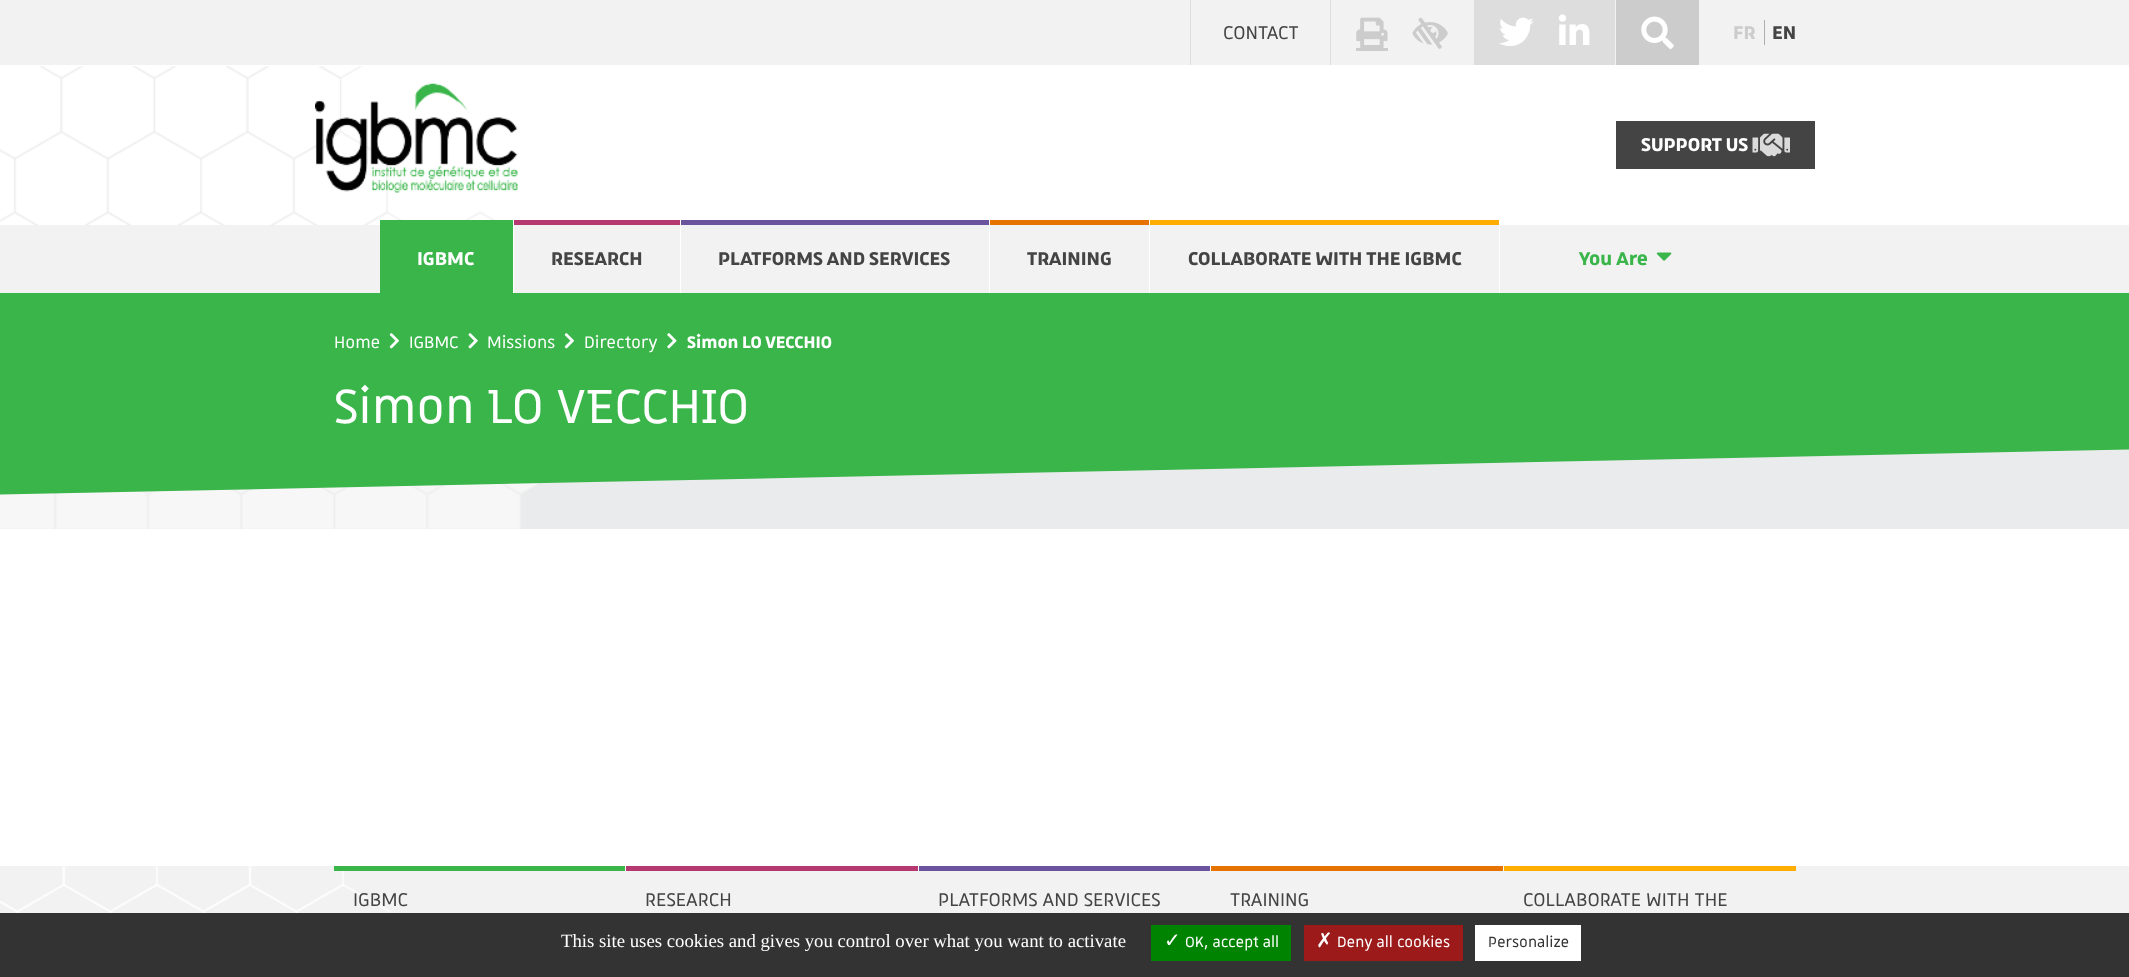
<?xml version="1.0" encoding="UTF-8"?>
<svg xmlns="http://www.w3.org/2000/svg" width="2129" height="977">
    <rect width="100%" height="100%" fill="#FFFFFF"/>
    <rect x="0" y="0" width="2129" height="65" fill="#F2F2F2"/>
    <rect x="1330" y="0" width="1" height="65" fill="#DDDDDD"/>
    <rect x="1190" y="0" width="1" height="65" fill="#DDDDDD"/>
    <text x="1223" y="39" font-family="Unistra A" font-size="25" fill="#444444">CONTACT</text>
    <image x="1356" y="17" width="32" height="31" href="img_01.png"/>
    <rect x="1356" y="48" width="32" height="3" fill="#CCCCCC"/>
    <image x="1412" y="17" width="36" height="32" href="img_02.png"/>
    <rect x="1474" y="0" width="141" height="65" fill="#DDDDDD"/>
    <image x="1499" y="17" width="35" height="29" href="img_03.png"/>
    <image x="1558" y="14" width="32" height="31" href="img_04.png"/>
    <rect x="1616" y="0" width="83" height="65" fill="#CCCCCC"/>
    <image x="1641" y="16" width="33" height="33" href="img_05.png"/>
    <rect x="1764" y="20" width="1" height="25" fill="#AFAFAF"/>
    <text x="1733" y="39" font-family="Unistra A" font-size="25" font-weight="700" fill="#CCCCCC">FR</text>
    <text x="1772" y="39" font-family="Unistra A" font-size="25" font-weight="700" fill="#444444">EN</text>
    <image x="0" y="66" width="496" height="159" href="img_06.png"/>
    <image x="315" y="83" width="203" height="110" href="img_07.png"/>
    <rect x="1616" y="121" width="199" height="48" fill="#444444"/>
    <text x="1641" y="151" font-family="Unistra A" font-size="25" font-weight="700" fill="#FFFFFF">SUPPORT US</text>
    <image x="1752" y="133" width="38" height="24" href="img_08.png"/>
    <rect x="0" y="225" width="2129" height="68" fill="#F2F2F2"/>
    <rect x="513" y="225" width="1" height="68" fill="#FFFFFF"/>
    <rect x="380" y="220" width="133" height="73" fill="#39B54A"/>
    <text x="417" y="265" font-family="Unistra A" font-size="25" font-weight="700" fill="#FFFFFF">IGBMC</text>
    <rect x="680" y="225" width="1" height="68" fill="#FFFFFF"/>
    <rect x="514" y="220" width="166" height="5" fill="#B53970"/>
    <text x="551" y="265" font-family="Unistra A" font-size="25" font-weight="700" fill="#444444">RESEARCH</text>
    <rect x="989" y="225" width="1" height="68" fill="#FFFFFF"/>
    <rect x="681" y="220" width="308" height="5" fill="#6B549D"/>
    <text x="718" y="265" font-family="Unistra A" font-size="25" font-weight="700" fill="#444444">PLATFORMS AND SERVICES</text>
    <rect x="1149" y="225" width="1" height="68" fill="#FFFFFF"/>
    <rect x="990" y="220" width="159" height="5" fill="#E67200"/>
    <text x="1027" y="265" font-family="Unistra A" font-size="25" font-weight="700" fill="#444444">TRAINING</text>
    <rect x="1499" y="225" width="1" height="68" fill="#FFFFFF"/>
    <rect x="1150" y="220" width="349" height="5" fill="#FFAE00"/>
    <text x="1188" y="265" font-family="Unistra A" font-size="25" font-weight="700" fill="#444444">COLLABORATE WITH THE IGBMC</text>
    <text x="1579" y="265" font-family="Unistra A" font-size="25" font-weight="700" fill="#39B54A">You Are</text>
    <image x="1656" y="252" width="16" height="9" href="img_09.png"/>
    <rect x="0" y="293" width="2129" height="53" fill="#39B54A"/>
    <rect x="0" y="449" width="2129" height="80" fill="#EAEBEC"/>
    <image x="0" y="483" width="543" height="46" href="img_13.png"/>
    <path d="M -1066 368 L 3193 279 L 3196 427 L -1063 517 Z" fill="#39B54A"/>
    <text x="334" y="348" font-family="Unistra A" font-size="22.5" fill="#FFFFFF">Home</text>
    <image x="389" y="333" width="10" height="16" href="img_10.png"/>
    <text x="409" y="348" font-family="Unistra A" font-size="22.5" fill="#FFFFFF">IGBMC</text>
    <image x="468" y="333" width="10" height="16" href="img_11.png"/>
    <text x="487" y="348" font-family="Unistra A" font-size="22.5" fill="#FFFFFF">Missions</text>
    <image x="564" y="333" width="10" height="16" href="img_10.png"/>
    <text x="584" y="348" font-family="Unistra A" font-size="22.5" fill="#FFFFFF">Directory</text>
    <image x="667" y="333" width="10" height="16" href="img_12.png"/>
    <text x="687" y="348" font-family="Unistra A" font-size="22.5" font-weight="700" fill="#FFFFFF">Simon LO VECCHIO</text>
    <text x="334" y="423" font-family="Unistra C" font-size="65" fill="#FFFFFF">Simon LO VECCHIO</text>
    <rect x="0" y="866" width="2129" height="47" fill="#F2F2F2"/>
    <image x="0" y="866" width="390" height="47" href="img_14.png"/>
    <rect x="334" y="866" width="292" height="5" fill="#39B54A"/>
    <rect x="625" y="866" width="1" height="5" fill="#FFFFFF"/>
    <text x="353" y="906" font-family="Unistra A" font-size="25" fill="#444444">IGBMC</text>
    <rect x="626" y="866" width="293" height="5" fill="#B53970"/>
    <rect x="918" y="866" width="1" height="5" fill="#FFFFFF"/>
    <text x="645" y="906" font-family="Unistra A" font-size="25" fill="#444444">RESEARCH</text>
    <rect x="919" y="866" width="292" height="5" fill="#6B549D"/>
    <rect x="1210" y="866" width="1" height="5" fill="#FFFFFF"/>
    <text x="938" y="906" font-family="Unistra A" font-size="25" fill="#444444">PLATFORMS AND SERVICES</text>
    <rect x="1211" y="866" width="293" height="5" fill="#E67200"/>
    <rect x="1503" y="866" width="1" height="5" fill="#FFFFFF"/>
    <text x="1230" y="906" font-family="Unistra A" font-size="25" fill="#444444">TRAINING</text>
    <rect x="1504" y="866" width="292" height="5" fill="#FFAE00"/>
    <text x="1523" y="906" font-family="Unistra A" font-size="25" fill="#444444">COLLABORATE WITH THE</text>
    <rect x="0" y="913" width="2129" height="64" fill="#333333"/>
    <text x="561" y="947" font-family="Liberation Serif" font-size="18.75" fill="#FFFFFF">This site uses cookies and gives you control over what you want to activate</text>
    <rect x="1151" y="925" width="140" height="36" fill="#008300"/>
    <text x="1164" y="947" font-family="DejaVu Sans" font-size="20" fill="#FFFFFF">✓</text>
    <text x="1185" y="947" font-family="Unistra A" font-size="20" fill="#FFFFFF">OK, accept all</text>
    <rect x="1304" y="925" width="159" height="36" fill="#9C1A1A"/>
    <text x="1316" y="947" font-family="DejaVu Sans" font-size="20" fill="#FFFFFF">✗</text>
    <text x="1337" y="947" font-family="Unistra A" font-size="20" fill="#FFFFFF">Deny all cookies</text>
    <rect x="1475" y="925" width="106" height="36" fill="#FFFFFF"/>
    <text x="1488" y="947" font-family="Unistra A" font-size="20" fill="#333333">Personalize</text>
</svg>
